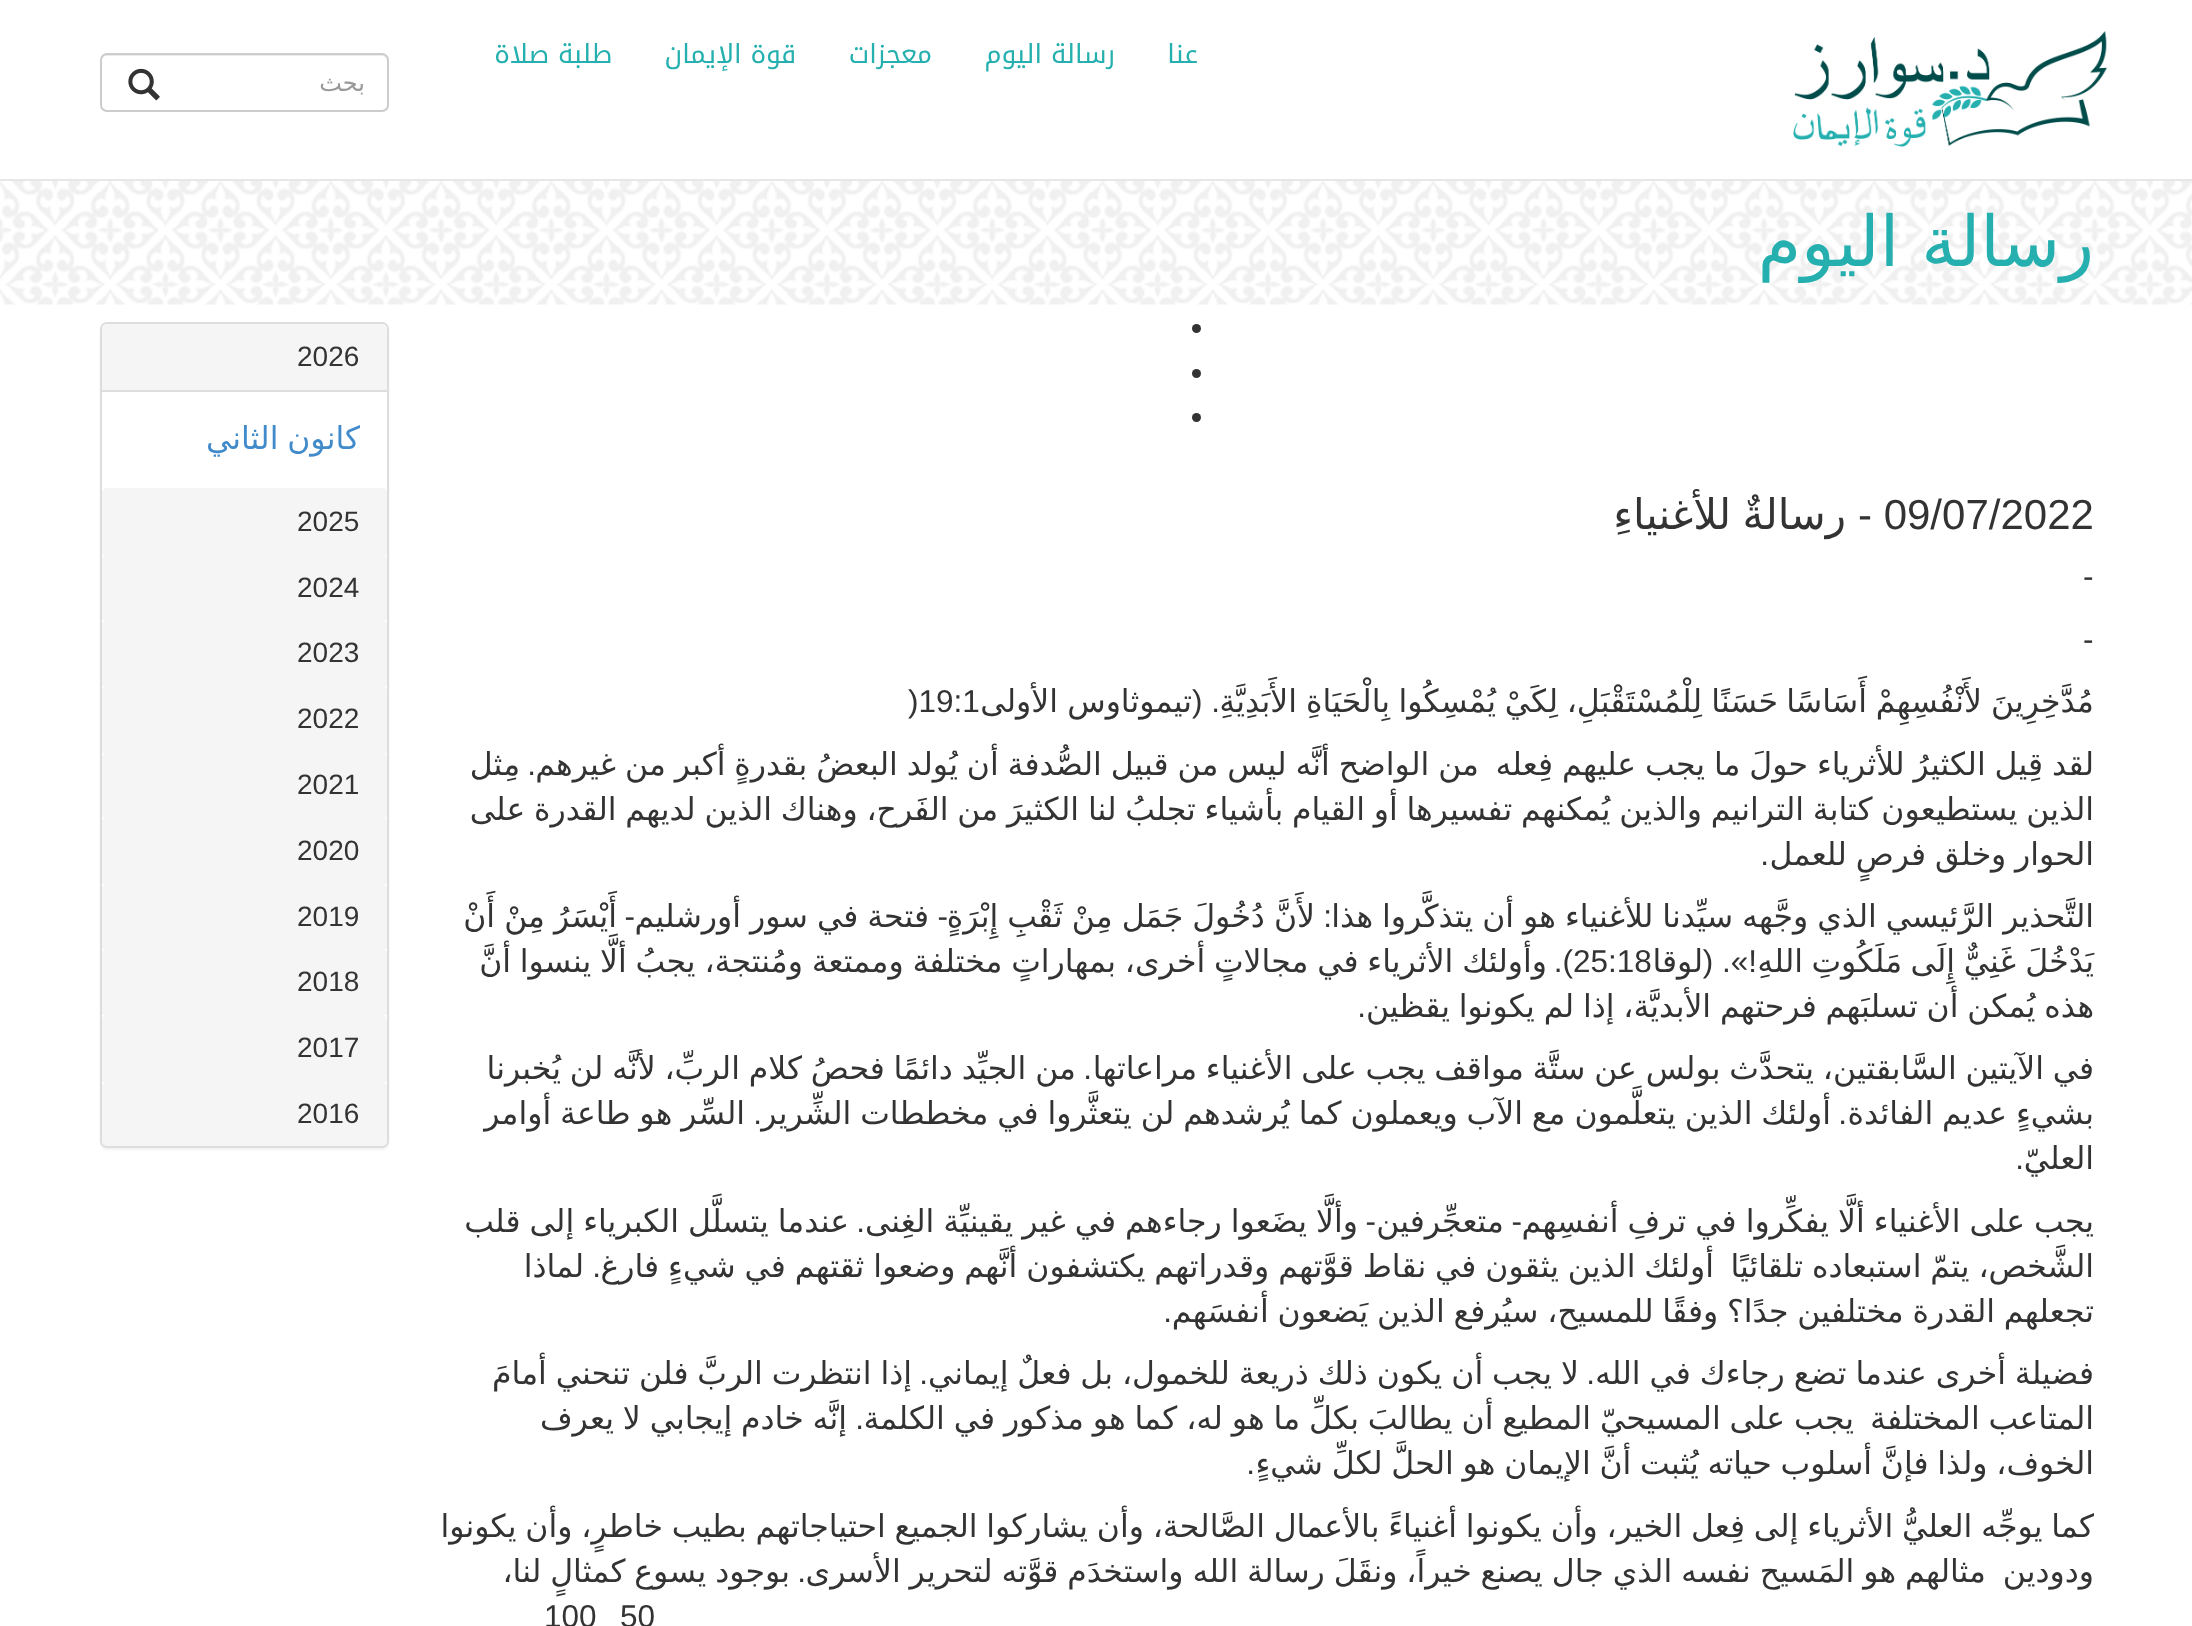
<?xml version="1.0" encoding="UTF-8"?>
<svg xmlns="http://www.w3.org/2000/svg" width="2192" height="1626">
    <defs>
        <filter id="blur1" x="-50%" y="-200%" width="200%" height="500%"><feGaussianBlur stdDeviation="1"/></filter>
    </defs>
    <rect width="100%" height="100%" fill="#FFFFFF"/>
    <rect x="0" y="179" width="2192" height="2" fill="#E7E7E7"/>
    <image x="1793" y="31" width="315" height="116" href="img_01.png"/>
    <text x="1198" y="63" font-family="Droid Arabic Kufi" font-size="26.25" direction="rtl" fill="#25AFAF">عنا</text>
    <text x="1115" y="63" font-family="Droid Arabic Kufi" font-size="26.25" direction="rtl" fill="#25AFAF">رسالة اليوم</text>
    <text x="932" y="63" font-family="Droid Arabic Kufi" font-size="26.25" direction="rtl" fill="#25AFAF">معجزات</text>
    <text x="796" y="63" font-family="Droid Arabic Kufi" font-size="26.25" direction="rtl" fill="#25AFAF">قوة الإيمان</text>
    <text x="612" y="63" font-family="Droid Arabic Kufi" font-size="26.25" direction="rtl" fill="#25AFAF">طلبة صلاة</text>
    <path d="M 107 56 H 382 C 384 56 387 58 387 61 C 387 58 386 54 382 54 H 106 C 102 55 102 58 102 61 C 102 58 104 56 107 56 Z" fill="#ECECEC"/>
    <rect x="101" y="54" width="287" height="57" rx="6" fill="none" stroke="#CCCCCC" stroke-width="2"/>
    <text x="365" y="91" font-family="DejaVu Sans" font-size="24" direction="rtl" fill="#999999">بحث</text>
    <image x="128" y="68" width="32" height="33" href="img_02.png"/>
    <image x="0" y="181" width="2192" height="124" href="img_03.png"/>
    <text x="2094" y="266" font-family="DejaVu Sans" font-size="70" direction="rtl" fill="#25AFAF">رسالة اليوم</text>
    <circle cx="1196.5" cy="328.5" r="4.5" fill="#333333"/>
    <circle cx="1196.5" cy="373.5" r="4.5" fill="#333333"/>
    <circle cx="1196.5" cy="417.5" r="4.5" fill="#333333"/>
    <text x="1858" y="529" font-family="Liberation Sans" font-size="42" fill="#333333">- 09/07/2022</text>
    <text x="1846" y="529" word-spacing="-2" font-family="DejaVu Sans" font-size="42" direction="rtl" fill="#333333">رسالةٌ للأغنياءِ</text>
    <text x="2083" y="587" font-family="Liberation Sans" font-size="31.5" fill="#333333">-</text>
    <text x="2083" y="650" font-family="Liberation Sans" font-size="31.5" fill="#333333">-</text>
    <text x="2094" y="712" font-family="DejaVu Sans" font-size="31.5" direction="rtl" fill="#333333">مُدَّخِرِينَ</text>
    <text x="1982" y="712" font-family="DejaVu Sans" font-size="31.5" direction="rtl" fill="#333333">لأَنْفُسِهِمْ</text>
    <text x="1867" y="712" font-family="DejaVu Sans" font-size="31.5" direction="rtl" fill="#333333">أَسَاسًا</text>
    <text x="1778" y="712" font-family="DejaVu Sans" font-size="31.5" direction="rtl" fill="#333333">حَسَنًا</text>
    <text x="1702" y="712" font-family="DejaVu Sans" font-size="31.5" direction="rtl" fill="#333333">لِلْمُسْتَقْبَلِ،</text>
    <text x="1558" y="712" font-family="DejaVu Sans" font-size="31.5" direction="rtl" fill="#333333">لِكَيْ</text>
    <text x="1496" y="712" font-family="DejaVu Sans" font-size="31.5" direction="rtl" fill="#333333">يُمْسِكُوا</text>
    <text x="1390" y="712" font-family="DejaVu Sans" font-size="31.5" direction="rtl" fill="#333333">بِالْحَيَاةِ</text>
    <text x="1297" y="712" font-family="DejaVu Sans" font-size="31.5" direction="rtl" fill="#333333">الأَبَدِيَّةِ</text>
    <text x="1220" y="712" font-family="Liberation Sans" font-size="31.5" direction="rtl" fill="#333333">. (</text>
    <text x="1192" y="712" font-family="DejaVu Sans" font-size="31.5" direction="rtl" fill="#333333">تيموثاوس</text>
    <text x="1058" y="712" font-family="DejaVu Sans" font-size="31.5" direction="rtl" fill="#333333">الأولى</text>
    <text x="908" y="712" font-family="Liberation Sans" font-size="31.5" fill="#333333">)19:1</text>
    <text x="2094" y="775" word-spacing="-1.1" font-family="DejaVu Sans" font-size="31.5" direction="rtl" fill="#333333">لقد قِيل الكثيرُ للأثرياء حولَ ما يجب عليهم فِعله</text>
    <text x="1479" y="775" word-spacing="-1.1" font-family="DejaVu Sans" font-size="31.5" direction="rtl" fill="#333333">من الواضح أنَّه ليس من قبيل الصُّدفة أن يُولد البعضُ بقدرةٍ أكبر من غيرهم</text>
    <text x="536" y="775" font-family="Liberation Sans" font-size="31.5" direction="rtl" fill="#333333">.</text>
    <text x="520" y="775" font-family="DejaVu Sans" font-size="31.5" direction="rtl" fill="#333333">مِثل</text>
    <text font-family="DejaVu Sans" font-size="31.5" direction="rtl" fill="#333333">
        <tspan x="2094" y="820" word-spacing="-1.25">الذين يستطيعون كتابة الترانيم والذين يُمكنهم تفسيرها أو القيام بأشياء تجلبُ لنا الكثيرَ من الفَرح، وهناك الذين لديهم القدرة على</tspan>
        <tspan x="2094" y="865" word-spacing="-1.25">الحوار وخلق فرصٍ للعمل</tspan>
    </text>
    <text x="1769" y="865" font-family="Liberation Sans" font-size="31.5" direction="rtl" fill="#333333">.</text>
    <text x="2094" y="927" word-spacing="-1" font-family="DejaVu Sans" font-size="31.5" direction="rtl" fill="#333333">التَّحذير الرَّئيسي الذي وجَّهه سيِّدنا للأغنياء هو أن يتذكَّروا هذا</text>
    <text x="1332" y="927" font-family="Liberation Sans" font-size="31.5" direction="rtl" fill="#333333">:</text>
    <text x="1315" y="927" word-spacing="-1" font-family="DejaVu Sans" font-size="31.5" direction="rtl" fill="#333333">لأَنَّ دُخُولَ جَمَل مِنْ ثَقْبِ إِبْرَةٍ</text>
    <text x="948" y="927" font-family="Liberation Sans" font-size="31.5" direction="rtl" fill="#333333">-</text>
    <text x="929" y="927" word-spacing="-1" font-family="DejaVu Sans" font-size="31.5" direction="rtl" fill="#333333">فتحة في سور أورشليم</text>
    <text x="635" y="927" font-family="Liberation Sans" font-size="31.5" direction="rtl" fill="#333333">-</text>
    <text x="617" y="927" word-spacing="-1" font-family="DejaVu Sans" font-size="31.5" direction="rtl" fill="#333333">أَيْسَرُ مِنْ أَنْ</text>
    <text x="2094" y="972" font-family="DejaVu Sans" font-size="31.5" direction="rtl" fill="#333333">يَدْخُلَ</text>
    <text x="2016" y="972" font-family="DejaVu Sans" font-size="31.5" direction="rtl" fill="#333333">غَنِيٌّ</text>
    <text x="1955" y="972" font-family="DejaVu Sans" font-size="31.5" direction="rtl" fill="#333333">إِلَى</text>
    <text x="1902" y="972" font-family="DejaVu Sans" font-size="31.5" direction="rtl" fill="#333333">مَلَكُوتِ</text>
    <text x="1803" y="972" font-family="DejaVu Sans" font-size="31.5" direction="rtl" fill="#333333">اللهِ</text>
    <text x="1757" y="972" font-family="Liberation Sans" font-size="31.5" direction="rtl" fill="#333333">!». (</text>
    <text x="1703" y="972" font-family="DejaVu Sans" font-size="31.5" direction="rtl" fill="#333333">لوقا</text>
    <text x="1573" y="972" font-family="Liberation Sans" font-size="31.5" fill="#333333">25:18</text>
    <text x="1547" y="972" word-spacing="-1.2" font-family="DejaVu Sans" font-size="31.5" direction="rtl" fill="#333333">وأولئك الأثرياء في مجالاتٍ أخرى، بمهاراتٍ مختلفة وممتعة ومُنتجة، يجبُ ألَّا ينسوا أنَّ</text>
    <text x="1573" y="972" font-family="Liberation Sans" font-size="31.5" direction="rtl" fill="#333333">).</text>
    <text x="2094" y="1017" word-spacing="-1.25" font-family="DejaVu Sans" font-size="31.5" direction="rtl" fill="#333333">هذه يُمكن أن تسلبَهم فرحتهم الأبديَّة، إذا لم يكونوا يقظين</text>
    <text x="1366" y="1017" font-family="Liberation Sans" font-size="31.5" direction="rtl" fill="#333333">.</text>
    <text x="2094" y="1079" word-spacing="-1.25" font-family="DejaVu Sans" font-size="31.5" direction="rtl" fill="#333333">في الآيتين السَّابقتين، يتحدَّث بولس عن ستَّة مواقف يجب على الأغنياء مراعاتها</text>
    <text x="1092" y="1079" font-family="Liberation Sans" font-size="31.5" direction="rtl" fill="#333333">.</text>
    <text x="1076" y="1079" word-spacing="-1.25" font-family="DejaVu Sans" font-size="31.5" direction="rtl" fill="#333333">من الجيِّد دائمًا فحصُ كلام الربِّ، لأنَّه لن يُخبرنا</text>
    <text x="2094" y="1124" word-spacing="-1.1" font-family="DejaVu Sans" font-size="31.5" direction="rtl" fill="#333333">بشيءٍ عديم الفائدة</text>
    <text x="1831" y="1124" word-spacing="-1.1" font-family="DejaVu Sans" font-size="31.5" direction="rtl" fill="#333333">أولئك الذين يتعلَّمون مع الآب ويعملون كما يُرشدهم لن يتعثَّروا في مخططات الشِّرير</text>
    <text x="762" y="1124" font-family="Liberation Sans" font-size="31.5" direction="rtl" fill="#333333">.</text>
    <text x="745" y="1124" word-spacing="-1.1" font-family="DejaVu Sans" font-size="31.5" direction="rtl" fill="#333333">السِّر هو طاعة أوامر</text>
    <text x="1847" y="1124" font-family="Liberation Sans" font-size="31.5" direction="rtl" fill="#333333">.</text>
    <text x="2094" y="1169" font-family="DejaVu Sans" font-size="31.5" direction="rtl" fill="#333333">العليّ</text>
    <text x="2024" y="1169" font-family="Liberation Sans" font-size="31.5" direction="rtl" fill="#333333">.</text>
    <text x="2094" y="1232" word-spacing="-1" font-family="DejaVu Sans" font-size="31.5" direction="rtl" fill="#333333">يجب على الأغنياء ألَّا يفكِّروا في ترفِ أنفسِهم</text>
    <text x="1522" y="1232" font-family="Liberation Sans" font-size="31.5" direction="rtl" fill="#333333">-</text>
    <text x="1504" y="1232" font-family="DejaVu Sans" font-size="31.5" direction="rtl" fill="#333333">متعجِّرفين</text>
    <text x="1376" y="1232" font-family="Liberation Sans" font-size="31.5" direction="rtl" fill="#333333">-</text>
    <text x="1358" y="1232" word-spacing="-1" font-family="DejaVu Sans" font-size="31.5" direction="rtl" fill="#333333">وألَّا يضَعوا رجاءهم في غير يقينيِّة الغِنى</text>
    <text x="849" y="1232" word-spacing="-1" font-family="DejaVu Sans" font-size="31.5" direction="rtl" fill="#333333">عندما يتسلَّل الكبرياء إلى قلب</text>
    <text x="865" y="1232" font-family="Liberation Sans" font-size="31.5" direction="rtl" fill="#333333">.</text>
    <text x="2094" y="1277" word-spacing="-1.1" font-family="DejaVu Sans" font-size="31.5" direction="rtl" fill="#333333">الشَّخص، يتمّ استبعاده تلقائيًا</text>
    <text x="1714" y="1277" word-spacing="-1.1" font-family="DejaVu Sans" font-size="31.5" direction="rtl" fill="#333333">أولئك الذين يثقون في نقاط قوَّتهم وقدراتهم يكتشفون أنَّهم وضعوا ثقتهم في شيءٍ فارغ</text>
    <text x="601" y="1277" font-family="Liberation Sans" font-size="31.5" direction="rtl" fill="#333333">.</text>
    <text x="584" y="1277" font-family="DejaVu Sans" font-size="31.5" direction="rtl" fill="#333333">لماذا</text>
    <text x="2094" y="1322" word-spacing="-1.25" font-family="DejaVu Sans" font-size="31.5" direction="rtl" fill="#333333">تجعلهم القدرة مختلفين جدًا؟ وفقًا للمسيح، سيُرفع الذين يَضعون أنفسَهم</text>
    <text x="1172" y="1322" font-family="Liberation Sans" font-size="31.5" direction="rtl" fill="#333333">.</text>
    <text x="2094" y="1384" word-spacing="-1.1" font-family="DejaVu Sans" font-size="31.5" direction="rtl" fill="#333333">فضيلة أخرى عندما تضع رجاءك في الله</text>
    <text x="1595" y="1384" font-family="Liberation Sans" font-size="31.5" direction="rtl" fill="#333333">.</text>
    <text x="1579" y="1384" word-spacing="-1.1" font-family="DejaVu Sans" font-size="31.5" direction="rtl" fill="#333333">لا يجب أن يكون ذلك ذريعة للخمول، بل فعلٌ إيماني</text>
    <text x="928" y="1384" font-family="Liberation Sans" font-size="31.5" direction="rtl" fill="#333333">.</text>
    <text x="912" y="1384" word-spacing="-1.1" font-family="DejaVu Sans" font-size="31.5" direction="rtl" fill="#333333">إذا انتظرت الربَّ فلن تنحني أمامَ</text>
    <text x="2094" y="1429" word-spacing="-1.1" font-family="DejaVu Sans" font-size="31.5" direction="rtl" fill="#333333">المتاعب المختلفة</text>
    <text x="1854" y="1429" word-spacing="-1.1" font-family="DejaVu Sans" font-size="31.5" direction="rtl" fill="#333333">يجب على المسيحيّ المطيع أن يطالبَ بكلِّ ما هو له، كما هو مذكور في الكلمة</text>
    <text x="864" y="1429" font-family="Liberation Sans" font-size="31.5" direction="rtl" fill="#333333">.</text>
    <text x="847" y="1429" word-spacing="-1.1" font-family="DejaVu Sans" font-size="31.5" direction="rtl" fill="#333333">إنَّه خادم إيجابي لا يعرف</text>
    <text x="2094" y="1474" word-spacing="-1.25" font-family="DejaVu Sans" font-size="31.5" direction="rtl" fill="#333333">الخوف، ولذا فإنَّ أسلوب حياته يُثبت أنَّ الإيمان هو الحلَّ لكلِّ شيءٍ</text>
    <text x="1255" y="1474" font-family="Liberation Sans" font-size="31.5" direction="rtl" fill="#333333">.</text>
    <text font-family="DejaVu Sans" font-size="31.5" direction="rtl" fill="#333333">
        <tspan x="2094" y="1537" word-spacing="-1.25">كما يوجِّه العليُّ الأثرياء إلى فِعل الخير، وأن يكونوا أغنياءً بالأعمال الصَّالحة، وأن يشاركوا الجميع احتياجاتهم بطيب خاطرٍ، وأن يكونوا</tspan>
        <tspan x="2094" y="1582">ودودين</tspan>
    </text>
    <text x="1986" y="1582" word-spacing="-1.1" font-family="DejaVu Sans" font-size="31.5" direction="rtl" fill="#333333">مثالهم هو المَسيح نفسه الذي جال يصنع خيراً، ونقَلَ رسالة الله واستخدَم قوَّته لتحرير الأسرى</text>
    <text x="806" y="1582" font-family="Liberation Sans" font-size="31.5" direction="rtl" fill="#333333">.</text>
    <text x="790" y="1582" word-spacing="-1.1" font-family="DejaVu Sans" font-size="31.5" direction="rtl" fill="#333333">بوجود يسوع كمثالٍ لنا،</text>
    <text x="620" y="1627" font-family="Liberation Sans" font-size="31.5" fill="#333333">50</text>
    <text x="544" y="1627" font-family="Liberation Sans" font-size="31.5" fill="#333333">100</text>
    <rect x="100" y="324" width="289" height="826" rx="7" fill="#000000" fill-opacity="0.05" filter="url(#blur1)"/>
    <rect x="101" y="323" width="287" height="824" rx="6" fill="#FFFFFF" stroke="#DDDDDD" stroke-width="2"/>
    <path d="M 107 324 H 382 C 385 324 387 326 387 329 V 390 H 102 V 329 C 102 326 104 324 107 324 Z" fill="#F5F5F5"/>
    <text x="297" y="366" font-family="Liberation Sans" font-size="28" fill="#333333">2026</text>
    <rect x="102" y="390" width="285" height="2" fill="#DDDDDD"/>
    <text x="360" y="449" word-spacing="-1.25" font-family="DejaVu Sans" font-size="31.5" direction="rtl" fill="#428BCA">كانون الثاني</text>
    <path d="M 107 488 H 382 C 385 488 387 490 387 493 V 555 H 102 V 493 C 102 490 104 488 107 488 Z" fill="#F5F5F5"/>
    <text x="297" y="531" font-family="Liberation Sans" font-size="28" fill="#333333">2025</text>
    <path d="M 107 555 H 382 C 385 555 387 557 387 560 V 620 H 102 V 560 C 102 557 104 555 107 555 Z" fill="#F5F5F5"/>
    <text x="297" y="597" font-family="Liberation Sans" font-size="28" fill="#333333">2024</text>
    <path d="M 107 620 H 382 C 385 620 387 622 387 625 V 686 H 102 V 625 C 102 622 104 620 107 620 Z" fill="#F5F5F5"/>
    <text x="297" y="662" font-family="Liberation Sans" font-size="28" fill="#333333">2023</text>
    <path d="M 107 686 H 382 C 385 686 387 688 387 691 V 753 H 102 V 691 C 102 688 104 686 107 686 Z" fill="#F5F5F5"/>
    <text x="297" y="728" font-family="Liberation Sans" font-size="28" fill="#333333">2022</text>
    <path d="M 107 753 H 382 C 385 753 387 755 387 758 V 817 H 102 V 758 C 102 755 104 753 107 753 Z" fill="#F5F5F5"/>
    <text x="297" y="794" font-family="Liberation Sans" font-size="28" fill="#333333">2021</text>
    <path d="M 107 817 H 382 C 385 817 387 819 387 822 V 884 H 102 V 822 C 102 819 104 817 107 817 Z" fill="#F5F5F5"/>
    <text x="297" y="860" font-family="Liberation Sans" font-size="28" fill="#333333">2020</text>
    <path d="M 107 884 H 382 C 385 884 387 886 387 889 V 949 H 102 V 889 C 102 886 104 884 107 884 Z" fill="#F5F5F5"/>
    <text x="297" y="926" font-family="Liberation Sans" font-size="28" fill="#333333">2019</text>
    <path d="M 107 949 H 382 C 385 949 387 951 387 954 V 1015 H 102 V 954 C 102 951 104 949 107 949 Z" fill="#F5F5F5"/>
    <text x="297" y="991" font-family="Liberation Sans" font-size="28" fill="#333333">2018</text>
    <path d="M 107 1015 H 382 C 385 1015 387 1017 387 1020 V 1082 H 102 V 1020 C 102 1017 104 1015 107 1015 Z" fill="#F5F5F5"/>
    <text x="297" y="1057" font-family="Liberation Sans" font-size="28" fill="#333333">2017</text>
    <rect x="102" y="1082" width="285" height="64" rx="5" fill="#F5F5F5"/>
    <text x="297" y="1123" font-family="Liberation Sans" font-size="28" fill="#333333">2016</text>
</svg>
